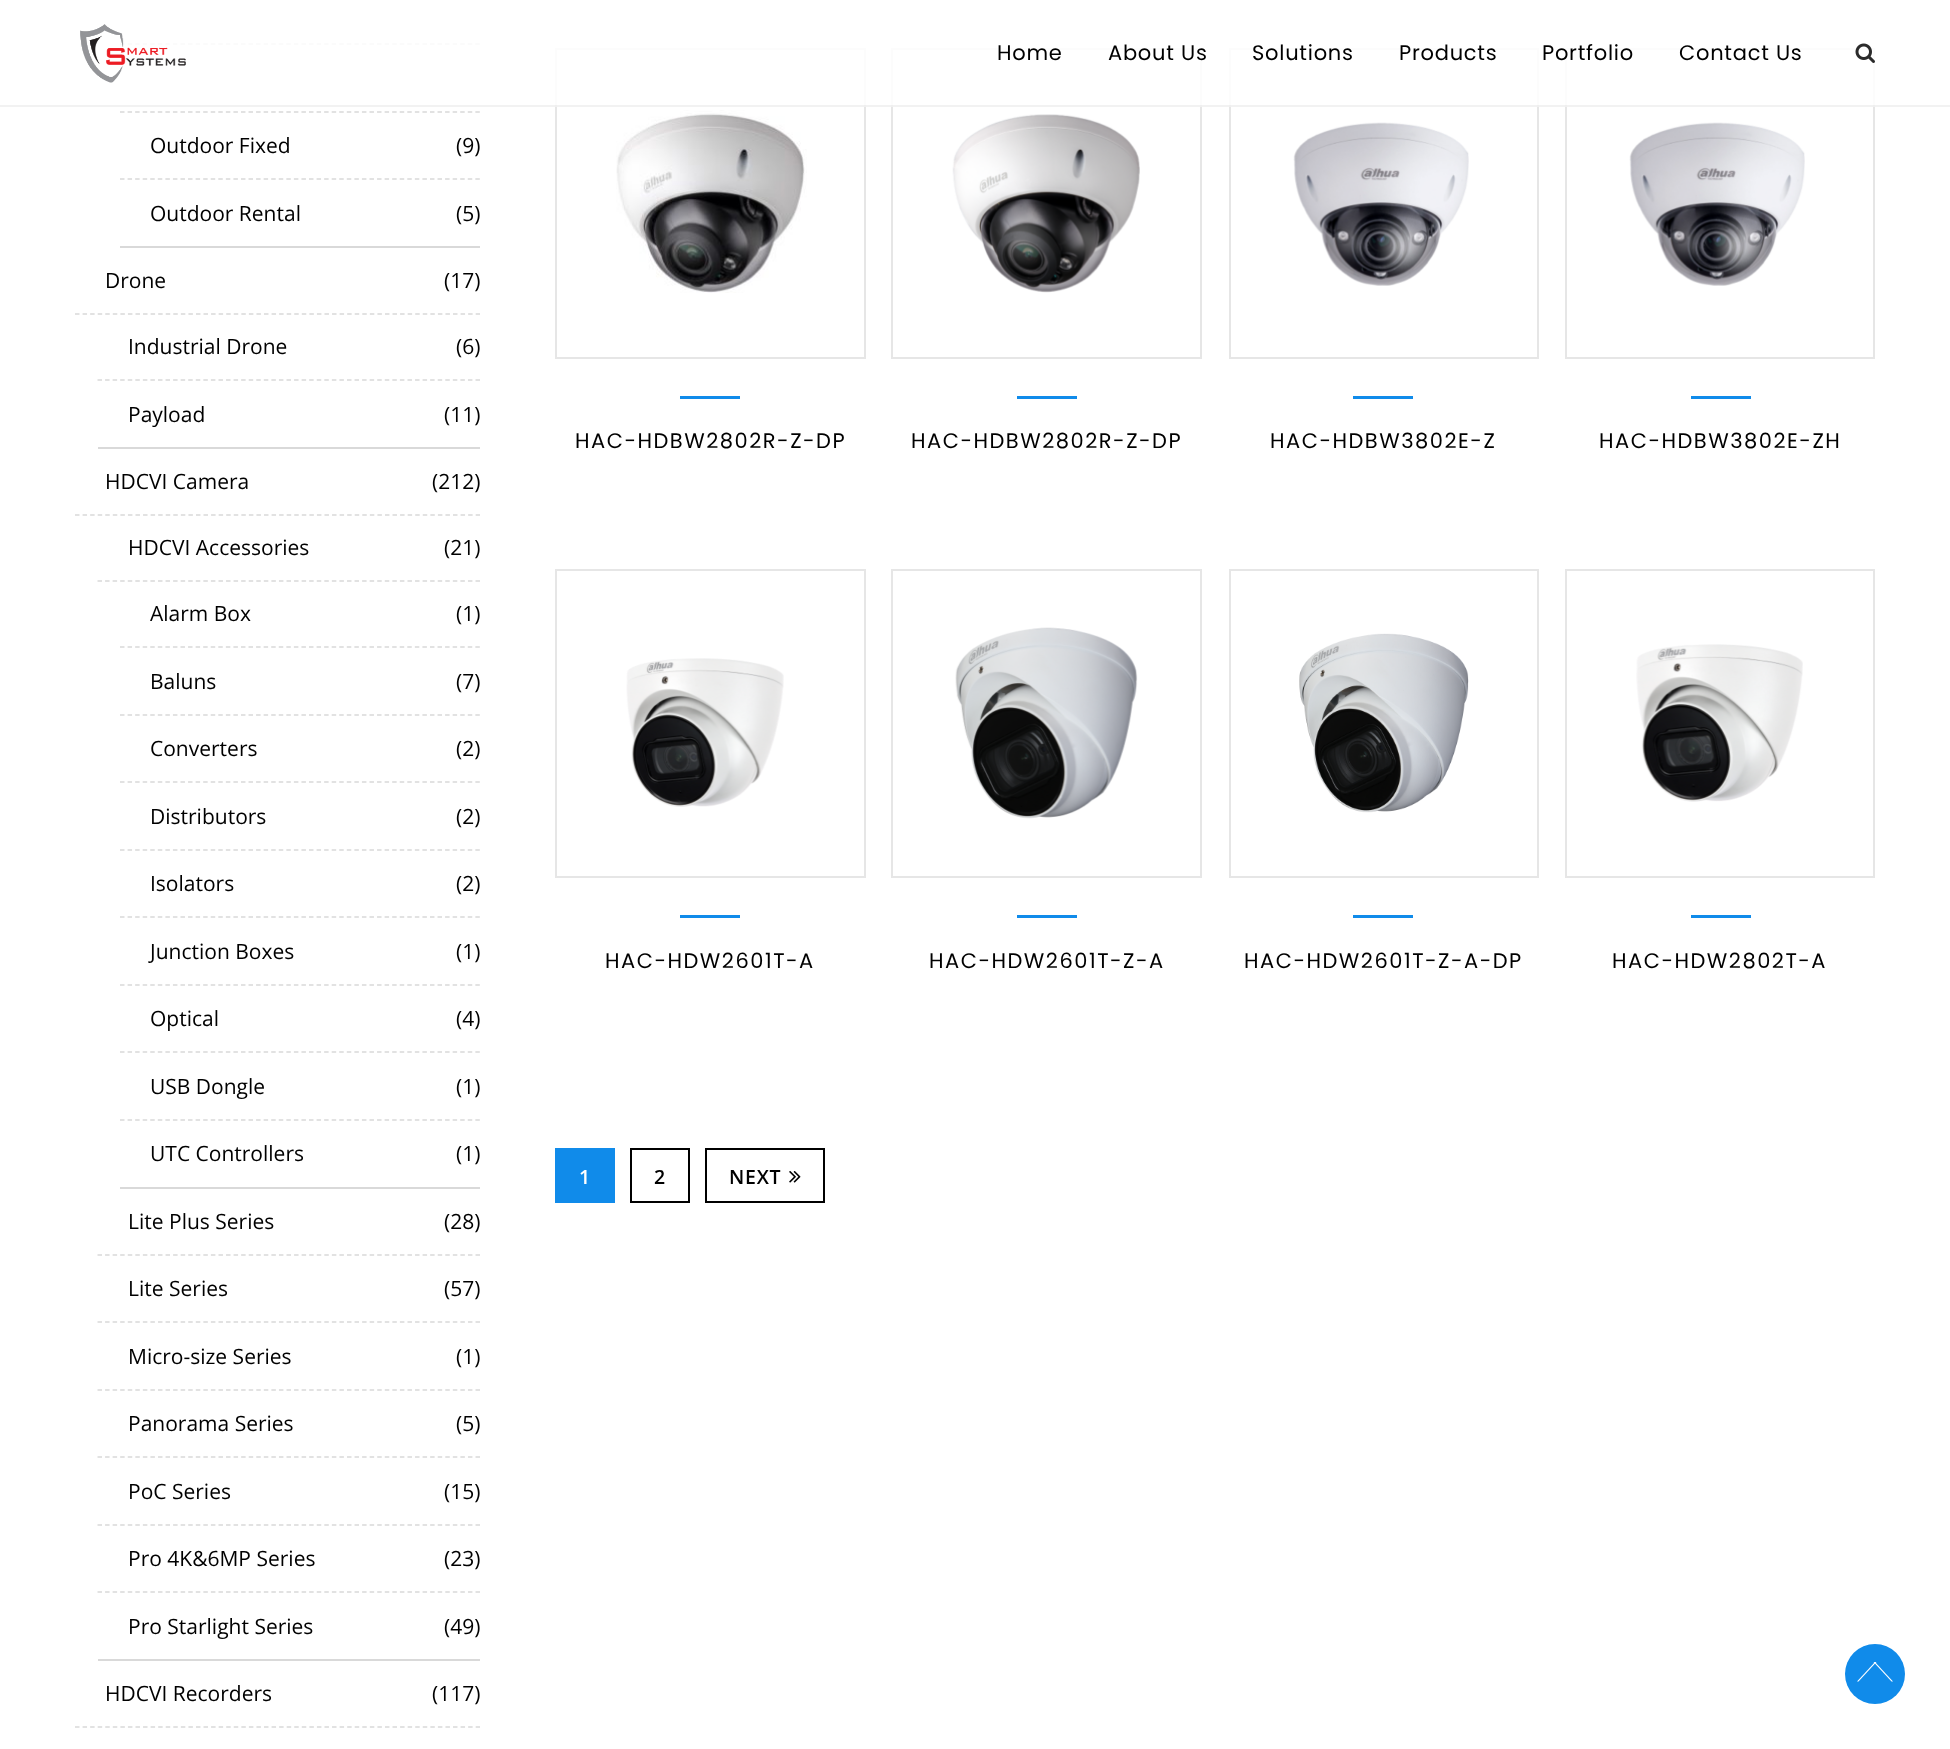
<?xml version="1.0" encoding="UTF-8"?>
<svg xmlns="http://www.w3.org/2000/svg" width="1950" height="1749">
    <rect width="100%" height="100%" fill="#FFFFFF"/>
    <path d="M 120 44 H 480" fill="none" stroke="#D9D9D9" stroke-width="1.5" stroke-dasharray="4.5 3.06"/>
    <rect x="556" y="49" width="309" height="309" fill="none" stroke="#E6E6E6" stroke-width="2"/>
    <rect x="892" y="49" width="309" height="309" fill="none" stroke="#E6E6E6" stroke-width="2"/>
    <rect x="1230" y="49" width="308" height="309" fill="none" stroke="#E6E6E6" stroke-width="2"/>
    <rect x="1566" y="49" width="308" height="309" fill="none" stroke="#E6E6E6" stroke-width="2"/>
    <rect x="120" y="43" width="1755" height="64" fill="#FFFFFF" fill-opacity="0.85"/>
    <rect x="0" y="105" width="1950" height="2" fill="#000000" fill-opacity="0.05"/>
    <image x="80" y="24" width="106" height="59" href="img_01.png"/>
    <text x="997" y="60" font-family="Poppins" font-size="21" letter-spacing="0.75" fill="#000000">Home</text>
    <text x="1108" y="60" font-family="Poppins" font-size="21" letter-spacing="0.75" fill="#000000">About Us</text>
    <text x="1252" y="60" font-family="Poppins" font-size="21" letter-spacing="0.75" fill="#000000">Solutions</text>
    <text x="1399" y="60" font-family="Poppins" font-size="21" letter-spacing="0.75" fill="#000000">Products</text>
    <text x="1542" y="60" font-family="Poppins" font-size="21" letter-spacing="0.75" fill="#000000">Portfolio</text>
    <text x="1679" y="60" font-family="Poppins" font-size="21" letter-spacing="0.75" fill="#000000">Contact Us</text>
    <image x="1855" y="43" width="20" height="20" href="img_02.png"/>
    <path d="M 120 112 H 480" fill="none" stroke="#D9D9D9" stroke-width="1.5" stroke-dasharray="4.5 3.06"/>
    <path d="M 120 179 H 480" fill="none" stroke="#D9D9D9" stroke-width="1.5" stroke-dasharray="4.5 3.06"/>
    <text x="150" y="153" font-family="Open Sans" font-size="21" fill="#000000">Outdoor Fixed</text>
    <text x="456" y="153" font-family="Open Sans" font-size="21" fill="#000000">(9)</text>
    <rect x="120" y="246" width="360" height="2" fill="#D9D9D9"/>
    <text x="150" y="221" font-family="Open Sans" font-size="21" fill="#000000">Outdoor Rental</text>
    <text x="456" y="221" font-family="Open Sans" font-size="21" fill="#000000">(5)</text>
    <path d="M 75 314 H 480" fill="none" stroke="#D9D9D9" stroke-width="1.5" stroke-dasharray="4.5 3.06"/>
    <text x="105" y="288" font-family="Open Sans" font-size="21" fill="#000000">Drone</text>
    <text x="444" y="288" font-family="Open Sans" font-size="21" fill="#000000">(17)</text>
    <path d="M 97.5 380 H 480" fill="none" stroke="#D9D9D9" stroke-width="1.5" stroke-dasharray="4.5 3.06"/>
    <text x="128" y="354" font-family="Open Sans" font-size="21" fill="#000000">Industrial Drone</text>
    <text x="456" y="354" font-family="Open Sans" font-size="21" fill="#000000">(6)</text>
    <rect x="98" y="447" width="382" height="2" fill="#D9D9D9"/>
    <text x="128" y="422" font-family="Open Sans" font-size="21" fill="#000000">Payload</text>
    <text x="444" y="422" font-family="Open Sans" font-size="21" fill="#000000">(11)</text>
    <path d="M 75 515 H 480" fill="none" stroke="#D9D9D9" stroke-width="1.5" stroke-dasharray="4.5 3.06"/>
    <text x="105" y="489" font-family="Open Sans" font-size="21" fill="#000000">HDCVI Camera</text>
    <text x="432" y="489" font-family="Open Sans" font-size="21" fill="#000000">(212)</text>
    <path d="M 97.5 581 H 480" fill="none" stroke="#D9D9D9" stroke-width="1.5" stroke-dasharray="4.5 3.06"/>
    <text x="128" y="555" font-family="Open Sans" font-size="21" fill="#000000">HDCVI Accessories</text>
    <text x="444" y="555" font-family="Open Sans" font-size="21" fill="#000000">(21)</text>
    <path d="M 120 647 H 480" fill="none" stroke="#D9D9D9" stroke-width="1.5" stroke-dasharray="4.5 3.06"/>
    <text x="150" y="621" font-family="Open Sans" font-size="21" fill="#000000">Alarm Box</text>
    <text x="456" y="621" font-family="Open Sans" font-size="21" fill="#000000">(1)</text>
    <path d="M 120 715 H 480" fill="none" stroke="#D9D9D9" stroke-width="1.5" stroke-dasharray="4.5 3.06"/>
    <text x="150" y="689" font-family="Open Sans" font-size="21" fill="#000000">Baluns</text>
    <text x="456" y="689" font-family="Open Sans" font-size="21" fill="#000000">(7)</text>
    <path d="M 120 782 H 480" fill="none" stroke="#D9D9D9" stroke-width="1.5" stroke-dasharray="4.5 3.06"/>
    <text x="150" y="756" font-family="Open Sans" font-size="21" fill="#000000">Converters</text>
    <text x="456" y="756" font-family="Open Sans" font-size="21" fill="#000000">(2)</text>
    <path d="M 120 850 H 480" fill="none" stroke="#D9D9D9" stroke-width="1.5" stroke-dasharray="4.5 3.06"/>
    <text x="150" y="824" font-family="Open Sans" font-size="21" fill="#000000">Distributors</text>
    <text x="456" y="824" font-family="Open Sans" font-size="21" fill="#000000">(2)</text>
    <path d="M 120 917 H 480" fill="none" stroke="#D9D9D9" stroke-width="1.5" stroke-dasharray="4.5 3.06"/>
    <text x="150" y="891" font-family="Open Sans" font-size="21" fill="#000000">Isolators</text>
    <text x="456" y="891" font-family="Open Sans" font-size="21" fill="#000000">(2)</text>
    <path d="M 120 985 H 480" fill="none" stroke="#D9D9D9" stroke-width="1.5" stroke-dasharray="4.5 3.06"/>
    <text x="150" y="959" font-family="Open Sans" font-size="21" fill="#000000">Junction Boxes</text>
    <text x="456" y="959" font-family="Open Sans" font-size="21" fill="#000000">(1)</text>
    <path d="M 120 1052 H 480" fill="none" stroke="#D9D9D9" stroke-width="1.5" stroke-dasharray="4.5 3.06"/>
    <text x="150" y="1026" font-family="Open Sans" font-size="21" fill="#000000">Optical</text>
    <text x="456" y="1026" font-family="Open Sans" font-size="21" fill="#000000">(4)</text>
    <path d="M 120 1120 H 480" fill="none" stroke="#D9D9D9" stroke-width="1.5" stroke-dasharray="4.5 3.06"/>
    <text x="150" y="1094" font-family="Open Sans" font-size="21" fill="#000000">USB Dongle</text>
    <text x="456" y="1094" font-family="Open Sans" font-size="21" fill="#000000">(1)</text>
    <rect x="120" y="1187" width="360" height="2" fill="#D9D9D9"/>
    <text x="150" y="1161" font-family="Open Sans" font-size="21" fill="#000000">UTC Controllers</text>
    <text x="456" y="1161" font-family="Open Sans" font-size="21" fill="#000000">(1)</text>
    <path d="M 97.5 1255 H 480" fill="none" stroke="#D9D9D9" stroke-width="1.5" stroke-dasharray="4.5 3.06"/>
    <text x="128" y="1229" font-family="Open Sans" font-size="21" fill="#000000">Lite Plus Series</text>
    <text x="444" y="1229" font-family="Open Sans" font-size="21" fill="#000000">(28)</text>
    <path d="M 97.5 1322 H 480" fill="none" stroke="#D9D9D9" stroke-width="1.5" stroke-dasharray="4.5 3.06"/>
    <text x="128" y="1296" font-family="Open Sans" font-size="21" fill="#000000">Lite Series</text>
    <text x="444" y="1296" font-family="Open Sans" font-size="21" fill="#000000">(57)</text>
    <path d="M 97.5 1390 H 480" fill="none" stroke="#D9D9D9" stroke-width="1.5" stroke-dasharray="4.5 3.06"/>
    <text x="128" y="1364" font-family="Open Sans" font-size="21" fill="#000000">Micro-size Series</text>
    <text x="456" y="1364" font-family="Open Sans" font-size="21" fill="#000000">(1)</text>
    <path d="M 97.5 1457 H 480" fill="none" stroke="#D9D9D9" stroke-width="1.5" stroke-dasharray="4.5 3.06"/>
    <text x="128" y="1431" font-family="Open Sans" font-size="21" fill="#000000">Panorama Series</text>
    <text x="456" y="1431" font-family="Open Sans" font-size="21" fill="#000000">(5)</text>
    <path d="M 97.5 1525 H 480" fill="none" stroke="#D9D9D9" stroke-width="1.5" stroke-dasharray="4.5 3.06"/>
    <text x="128" y="1499" font-family="Open Sans" font-size="21" fill="#000000">PoC Series</text>
    <text x="444" y="1499" font-family="Open Sans" font-size="21" fill="#000000">(15)</text>
    <path d="M 97.5 1592 H 480" fill="none" stroke="#D9D9D9" stroke-width="1.5" stroke-dasharray="4.5 3.06"/>
    <text x="128" y="1566" font-family="Open Sans" font-size="21" fill="#000000">Pro 4K&amp;6MP Series</text>
    <text x="444" y="1566" font-family="Open Sans" font-size="21" fill="#000000">(23)</text>
    <rect x="98" y="1659" width="382" height="2" fill="#D9D9D9"/>
    <text x="128" y="1634" font-family="Open Sans" font-size="21" fill="#000000">Pro Starlight Series</text>
    <text x="444" y="1634" font-family="Open Sans" font-size="21" fill="#000000">(49)</text>
    <path d="M 75 1727 H 480" fill="none" stroke="#D9D9D9" stroke-width="1.5" stroke-dasharray="4.5 3.06"/>
    <text x="105" y="1701" font-family="Open Sans" font-size="21" fill="#000000">HDCVI Recorders</text>
    <text x="432" y="1701" font-family="Open Sans" font-size="21" fill="#000000">(117)</text>
    <image x="616" y="110" width="191" height="183" href="img_03.png"/>
    <rect x="680" y="396" width="60" height="3" fill="#108BEA"/>
    <text x="575" y="448" font-family="Poppins" font-size="21" letter-spacing="1.5" fill="#000000">HAC-HDBW2802R-Z-DP</text>
    <image x="952" y="114" width="188" height="179" href="img_04.png"/>
    <rect x="1017" y="396" width="60" height="3" fill="#108BEA"/>
    <text x="911" y="448" font-family="Poppins" font-size="21" letter-spacing="1.5" fill="#000000">HAC-HDBW2802R-Z-DP</text>
    <image x="1293" y="122" width="176" height="164" href="img_05.png"/>
    <rect x="1353" y="396" width="60" height="3" fill="#108BEA"/>
    <text x="1270" y="448" font-family="Poppins" font-size="21" letter-spacing="1.5" fill="#000000">HAC-HDBW3802E-Z</text>
    <image x="1629" y="122" width="176" height="164" href="img_05.png"/>
    <rect x="1691" y="396" width="60" height="3" fill="#108BEA"/>
    <text x="1599" y="448" font-family="Poppins" font-size="21" letter-spacing="1.5" fill="#000000">HAC-HDBW3802E-ZH</text>
    <rect x="556" y="570" width="309" height="307" fill="none" stroke="#E6E6E6" stroke-width="2"/>
    <image x="626" y="658" width="158" height="149" href="img_06.png"/>
    <rect x="680" y="915" width="60" height="3" fill="#108BEA"/>
    <text x="605" y="968" font-family="Poppins" font-size="21" letter-spacing="1.5" fill="#000000">HAC-HDW2601T-A</text>
    <rect x="892" y="570" width="309" height="307" fill="none" stroke="#E6E6E6" stroke-width="2"/>
    <image x="955" y="627" width="183" height="192" href="img_07.png"/>
    <rect x="1017" y="915" width="60" height="3" fill="#108BEA"/>
    <text x="929" y="968" font-family="Poppins" font-size="21" letter-spacing="1.5" fill="#000000">HAC-HDW2601T-Z-A</text>
    <rect x="1230" y="570" width="308" height="307" fill="none" stroke="#E6E6E6" stroke-width="2"/>
    <image x="1299" y="633" width="170" height="180" href="img_08.png"/>
    <rect x="1353" y="915" width="60" height="3" fill="#108BEA"/>
    <text x="1244" y="968" font-family="Poppins" font-size="21" letter-spacing="1.5" fill="#000000">HAC-HDW2601T-Z-A-DP</text>
    <rect x="1566" y="570" width="308" height="307" fill="none" stroke="#E6E6E6" stroke-width="2"/>
    <image x="1636" y="644" width="167" height="158" href="img_09.png"/>
    <rect x="1691" y="915" width="60" height="3" fill="#108BEA"/>
    <text x="1612" y="968" font-family="Poppins" font-size="21" letter-spacing="1.5" fill="#000000">HAC-HDW2802T-A</text>
    <rect x="555" y="1148" width="60" height="55" fill="#108BEA"/>
    <text x="579" y="1184" font-family="Open Sans" font-size="19.5" font-weight="600" letter-spacing="0.75" fill="#FFFFFF">1</text>
    <rect x="631" y="1149" width="58" height="53" fill="none" stroke="#000000" stroke-width="2"/>
    <text x="654" y="1184" font-family="Open Sans" font-size="19.5" font-weight="600" letter-spacing="0.75" fill="#000000">2</text>
    <rect x="706" y="1149" width="118" height="53" fill="none" stroke="#000000" stroke-width="2"/>
    <text x="729" y="1184" font-family="Open Sans" font-size="19.5" font-weight="600" letter-spacing="0.75" fill="#000000">NEXT</text>
    <image x="789" y="1171" width="12" height="12" href="img_10.png"/>
    <circle cx="1875" cy="1674" r="30" fill="#108BEA"/>
    <path d="M 1875 1662 H 1876.5 L 1858.5 1681.5 H 1857 Z" fill="#FFFFFF"/>
    <path d="M 1873.5 1662 H 1875 L 1893 1681.5 H 1891.5 Z" fill="#FFFFFF"/>
</svg>
